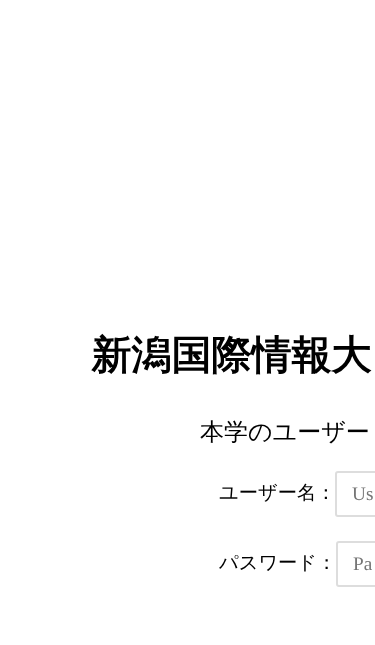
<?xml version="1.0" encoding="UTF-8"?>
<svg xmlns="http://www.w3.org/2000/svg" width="375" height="645">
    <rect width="100%" height="100%" fill="#FFFFFF"/>
    <text x="91" y="369" word-spacing="-2" font-family="WenQuanYi Zen Hei" font-size="40" font-weight="700" fill="#000000">新潟国際情報大</text>
    <text x="200" y="440" font-family="WenQuanYi Zen Hei" font-size="24" font-weight="500" fill="#000000">本学のユーザー</text>
    <text x="219" y="499" font-family="WenQuanYi Zen Hei" font-size="19.25" font-weight="500" fill="#000000">ユーザー名：</text>
    <rect x="336" y="472" width="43" height="44" rx="2" fill="none" stroke="#DDDDDD" stroke-width="2"/>
    <text x="352" y="500" font-family="Liberation Serif" font-size="19.25" fill="#757575">Us</text>
    <text x="219" y="569" font-family="WenQuanYi Zen Hei" font-size="19.25" font-weight="500" fill="#000000">パスワード：</text>
    <rect x="337" y="542" width="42" height="44" rx="2" fill="none" stroke="#DDDDDD" stroke-width="2"/>
    <text x="353" y="570" font-family="Liberation Serif" font-size="19.25" fill="#757575">Pa</text>
</svg>
